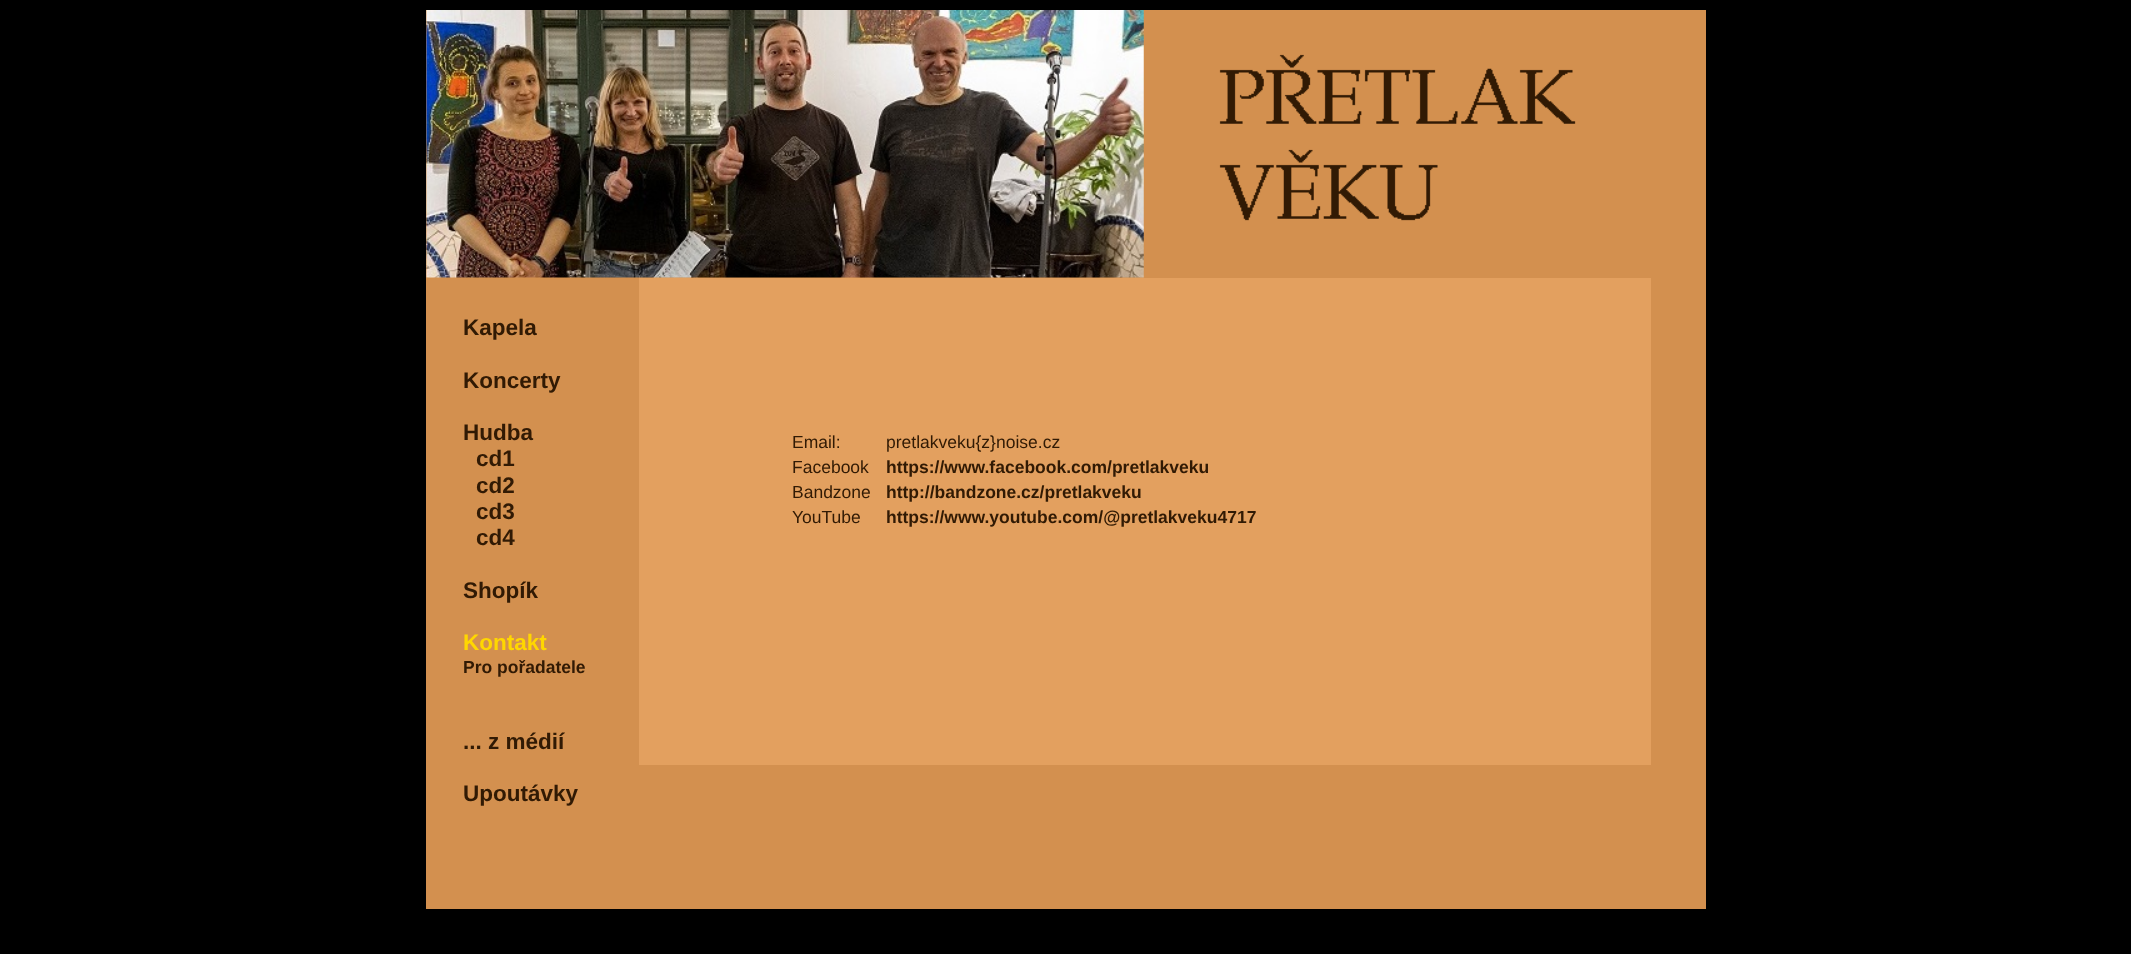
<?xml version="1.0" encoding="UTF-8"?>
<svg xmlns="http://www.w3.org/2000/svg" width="2131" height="954">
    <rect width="100%" height="100%" fill="#000000"/>
    <rect x="426" y="10" width="1280" height="899" fill="#D3904F"/>
    <image x="426" y="10" width="718" height="268" href="img_01.png"/>
    <image x="1219" y="54" width="357" height="167" href="img_02.png"/>
    <text x="463" y="335" font-family="Liberation Sans" font-size="22.5" font-weight="700" fill="#311A04">Kapela</text>
    <text x="463" y="388" font-family="Liberation Sans" font-size="22.5" font-weight="700" fill="#311A04">Koncerty</text>
    <text x="463" y="440" font-family="Liberation Sans" font-size="22.5" font-weight="700" fill="#311A04">Hudba</text>
    <text font-family="Liberation Sans" font-size="22.5" font-weight="700" fill="#311A04">
        <tspan x="476" y="466">cd1</tspan>
        <tspan x="476" y="493">cd2</tspan>
        <tspan x="476" y="519">cd3</tspan>
        <tspan x="476" y="545">cd4</tspan>
    </text>
    <text x="463" y="598" font-family="Liberation Sans" font-size="22.5" font-weight="700" fill="#311A04">Shopík</text>
    <text x="463" y="650" font-family="Liberation Sans" font-size="22.5" font-weight="700" fill="#FFD700">Kontakt</text>
    <text x="463" y="673" font-family="Liberation Sans" font-size="17.5" font-weight="700" fill="#311A04">Pro pořadatele</text>
    <text x="463" y="749" font-family="Liberation Sans" font-size="22.5" font-weight="700" fill="#311A04">... z médií</text>
    <text x="463" y="801" font-family="Liberation Sans" font-size="22.5" font-weight="700" fill="#311A04">Upoutávky</text>
    <rect x="639" y="278" width="1012" height="487" fill="#E3A05F"/>
    <text x="792" y="448" font-family="Liberation Sans" font-size="17.5" fill="#311A04">Email:</text>
    <text x="886" y="448" font-family="Liberation Sans" font-size="17.5" fill="#311A04">pretlakveku{z}noise.cz</text>
    <text x="792" y="473" font-family="Liberation Sans" font-size="17.5" fill="#311A04">Facebook</text>
    <text x="886" y="473" font-family="Liberation Sans" font-size="17.5" font-weight="700" fill="#311A04">https://www.facebook.com/pretlakveku</text>
    <text x="792" y="498" font-family="Liberation Sans" font-size="17.5" fill="#311A04">Bandzone</text>
    <text x="886" y="498" font-family="Liberation Sans" font-size="17.5" font-weight="700" fill="#311A04">http://bandzone.cz/pretlakveku</text>
    <text x="792" y="523" font-family="Liberation Sans" font-size="17.5" fill="#311A04">YouTube</text>
    <text x="886" y="523" font-family="Liberation Sans" font-size="17.5" font-weight="700" fill="#311A04">https://www.youtube.com/@pretlakveku4717</text>
</svg>
